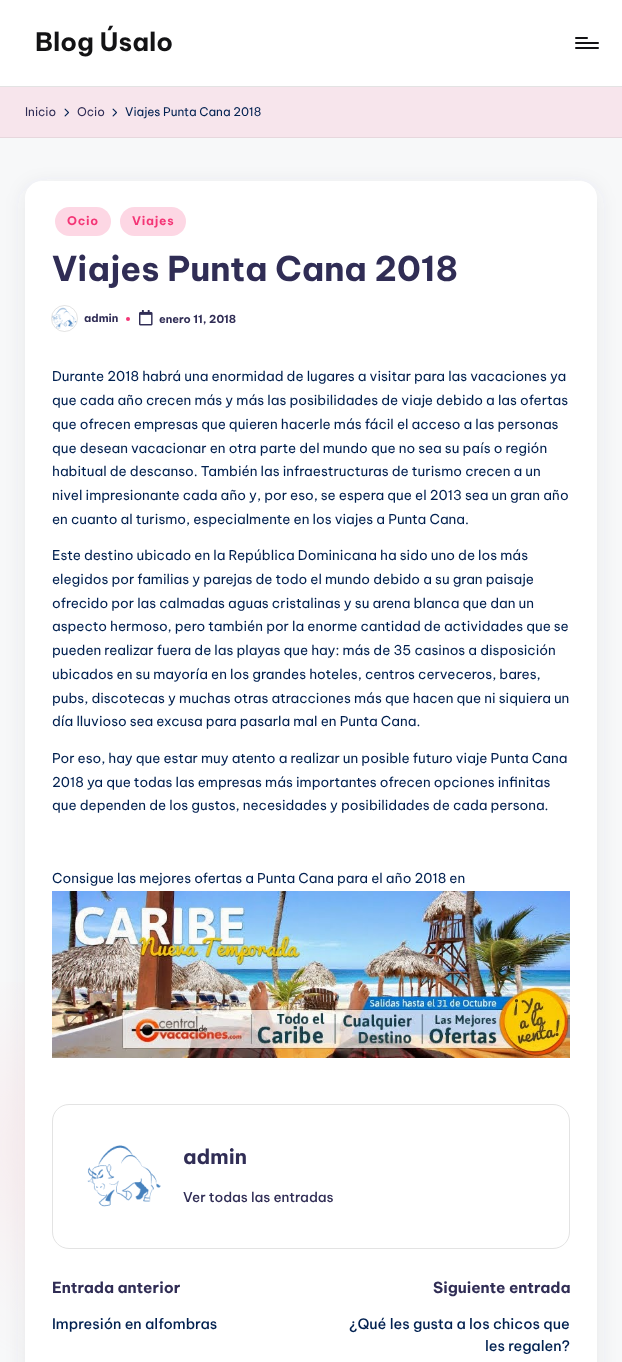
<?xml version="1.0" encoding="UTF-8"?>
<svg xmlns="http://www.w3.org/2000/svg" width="622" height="1362">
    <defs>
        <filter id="blur1" x="-50%" y="-200%" width="200%" height="500%"><feGaussianBlur stdDeviation="10"/></filter>
        <clipPath id="clip1"><rect x="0" y="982" width="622" height="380"/></clipPath>
        <filter id="blur2" x="-50%" y="-200%" width="200%" height="500%"><feGaussianBlur stdDeviation="64"/></filter>
    </defs>
    <rect width="100%" height="100%" fill="#F7F8F9"/>
    <rect x="0" y="0" width="622" height="86" fill="#FFFFFF"/>
    <rect x="0" y="86" width="622" height="1" fill="#E3E3E3"/>
    <text x="35" y="51" font-family="Be Vietnam Pro" font-size="25.5" font-weight="700" fill="#131315">Blog Úsalo</text>
    <rect x="575" y="42" width="24" height="2" rx="1" fill="#131315"/>
    <rect x="575" y="37" width="13" height="2" rx="1" fill="#131315"/>
    <rect x="575" y="47" width="24" height="2" rx="1" fill="#131315"/>
    <rect x="0" y="87" width="622" height="50" fill="#F7E5EC"/>
    <rect x="0" y="137" width="622" height="1" fill="#E7D7DD"/>
    <text x="25" y="116" font-family="Be Vietnam Pro" font-size="11.9" fill="#302D55">Inicio</text>
    <image x="64" y="108" width="5" height="9" href="img_01.png"/>
    <text x="77" y="116" font-family="Be Vietnam Pro" font-size="11.9" fill="#302D55">Ocio</text>
    <image x="112" y="108" width="5" height="9" href="img_01.png"/>
    <text x="125" y="116" font-family="Be Vietnam Pro" font-size="11.9" fill="#002050">Viajes Punta Cana 2018</text>
    <rect x="25" y="186" width="572" height="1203" rx="17" fill="#454360" fill-opacity="0.1" filter="url(#blur1)"/>
    <g clip-path="url(#clip1)">
        <rect x="0" y="1025" width="244" height="244" rx="122" fill="#F7E3E6" filter="url(#blur2)"/>
    </g>
    <rect x="25" y="181" width="572" height="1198" rx="17" fill="#FFFFFF"/>
    <rect x="55" y="207" width="56" height="29" rx="14.5" fill="#FDD7E4"/>
    <text x="67" y="225" font-family="Be Vietnam Pro" font-size="12" font-weight="700" letter-spacing="0.75" fill="#F43676">Ocio</text>
    <rect x="120" y="207" width="66" height="29" rx="14.5" fill="#FDD7E4"/>
    <text x="132" y="225" font-family="Be Vietnam Pro" font-size="12" font-weight="700" letter-spacing="0.75" fill="#F43676">Viajes</text>
    <text x="52" y="281" font-family="Be Vietnam Pro" font-size="34" font-weight="700" fill="#302D55">Viajes Punta Cana 2018</text>
    <image x="52" y="307" width="25" height="22" href="img_02.png"/>
    <circle cx="64.5" cy="318.5" r="13" fill="none" stroke="#B9B9B9" stroke-opacity="0.4"/>
    <text x="84" y="322" font-family="Be Vietnam Pro" font-size="11" font-weight="700" fill="#302D55">admin</text>
    <circle cx="128" cy="319" r="2" fill="#F43676"/>
    <image x="139" y="310" width="14" height="16" href="img_03.png"/>
    <text x="159" y="323" font-family="Be Vietnam Pro" font-size="11" font-weight="700" fill="#302D55">enero 11, 2018</text>
    <text font-family="Be Vietnam Pro" font-size="13.55" fill="#002050">
        <tspan x="52" y="381">Durante 2018 habrá una enormidad de lugares a visitar para las vacaciones ya</tspan>
        <tspan x="52" y="405">que cada año crecen más y más las posibilidades de viaje debido a las ofertas</tspan>
        <tspan x="52" y="429">que ofrecen empresas que quieren hacerle más fácil el acceso a las personas</tspan>
        <tspan x="52" y="453">que desean vacacionar en otra parte del mundo que no sea su país o región</tspan>
        <tspan x="52" y="476">habitual de descanso. También las infraestructuras de turismo crecen a un</tspan>
        <tspan x="52" y="500">nivel impresionante cada año y, por eso, se espera que el 2013 sea un gran año</tspan>
        <tspan x="52" y="524">en cuanto al turismo, especialmente en los viajes a Punta Cana.</tspan>
    </text>
    <text font-family="Be Vietnam Pro" font-size="13.55" fill="#002050">
        <tspan x="52" y="560">Este destino ubicado en la República Dominicana ha sido uno de los más</tspan>
        <tspan x="52" y="584">elegidos por familias y parejas de todo el mundo debido a su gran paisaje</tspan>
        <tspan x="52" y="608">ofrecido por las calmadas aguas cristalinas y su arena blanca que dan un</tspan>
        <tspan x="52" y="631">aspecto hermoso, pero también por la enorme cantidad de actividades que se</tspan>
        <tspan x="52" y="655">pueden realizar fuera de las playas que hay: más de 35 casinos a disposición</tspan>
        <tspan x="52" y="679">ubicados en su mayoría en los grandes hoteles, centros cerveceros, bares,</tspan>
        <tspan x="52" y="703">pubs, discotecas y muchas otras atracciones más que hacen que ni siquiera un</tspan>
        <tspan x="52" y="726">día lluvioso sea excusa para pasarla mal en Punta Cana.</tspan>
    </text>
    <text font-family="Be Vietnam Pro" font-size="13.55" fill="#002050">
        <tspan x="52" y="763">Por eso, hay que estar muy atento a realizar un posible futuro viaje Punta Cana</tspan>
        <tspan x="52" y="787">2018 ya que todas las empresas más importantes ofrecen opciones infinitas</tspan>
        <tspan x="52" y="810">que dependen de los gustos, necesidades y posibilidades de cada persona.</tspan>
    </text>
    <text x="52" y="883" font-family="Be Vietnam Pro" font-size="13.55" fill="#002050">Consigue las mejores ofertas a Punta Cana para el año 2018 en</text>
    <image x="52" y="891" width="518" height="167" href="img_04.png"/>
    <rect x="52.5" y="1104.5" width="517" height="144" rx="16.5" fill="none" stroke="#E3E3E3"/>
    <image x="87" y="1145" width="74" height="62" href="img_05.png"/>
    <text x="183" y="1164" font-family="Be Vietnam Pro" font-size="20.5" font-weight="700" fill="#302D55">admin</text>
    <text x="183" y="1202" font-family="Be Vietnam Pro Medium" font-size="13.55" font-weight="500" fill="#302D55">Ver todas las entradas</text>
    <text x="52" y="1293" font-family="Be Vietnam Pro" font-size="15.25" font-weight="700" fill="#302D55">Entrada anterior</text>
    <text x="52" y="1329" font-family="Be Vietnam Pro Medium" font-size="14.4" font-weight="500" fill="#002050">Impresión en alfombras</text>
    <text x="433" y="1293" font-family="Be Vietnam Pro" font-size="15.25" font-weight="700" fill="#302D55">Siguiente entrada</text>
    <text x="349" y="1329" font-family="Be Vietnam Pro Medium" font-size="14.4" font-weight="500" fill="#002050">¿Qué les gusta a los chicos que</text>
    <text x="485" y="1351" font-family="Be Vietnam Pro Medium" font-size="14.4" font-weight="500" fill="#002050">les regalen?</text>
</svg>
